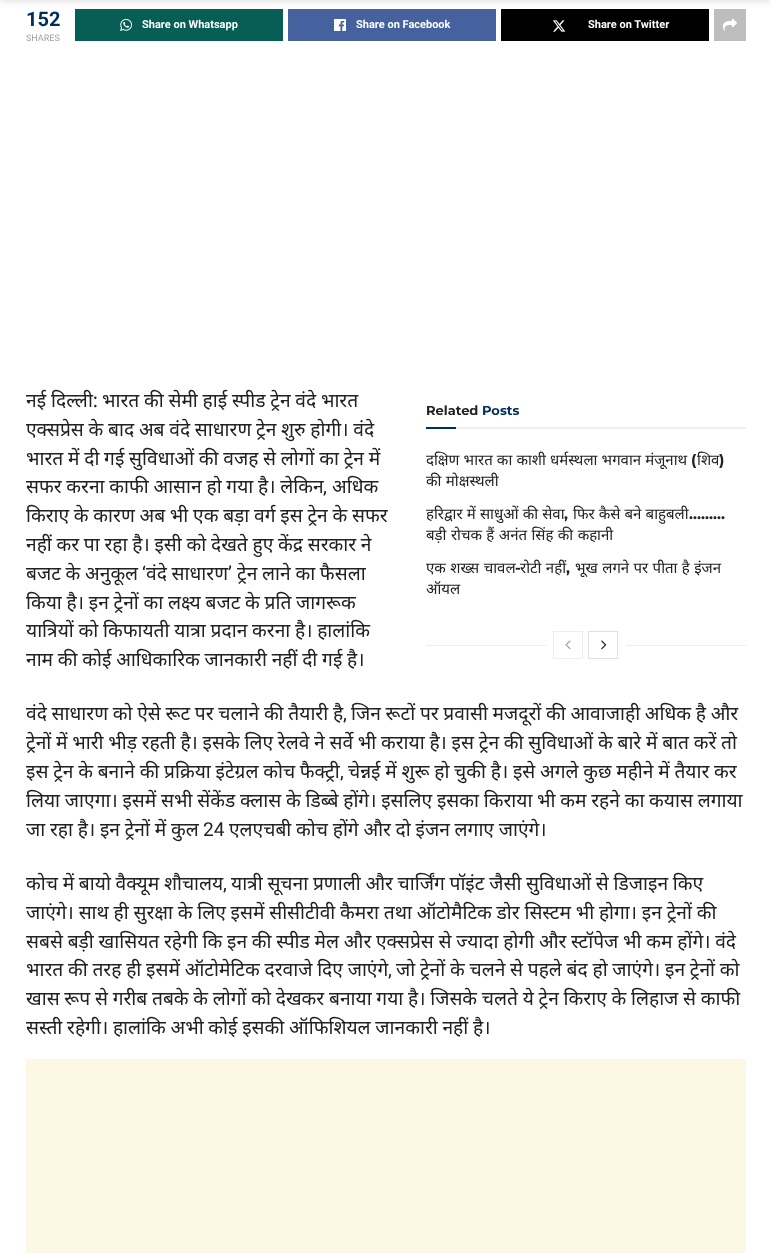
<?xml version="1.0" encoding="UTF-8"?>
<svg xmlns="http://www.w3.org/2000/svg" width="771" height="1253">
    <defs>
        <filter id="blur1" x="-50%" y="-200%" width="200%" height="500%"><feGaussianBlur stdDeviation="3"/></filter>
        <clipPath id="clip1"><rect x="426" y="449" width="320" height="42"/></clipPath>
    </defs>
    <rect width="100%" height="100%" fill="#FFFFFF"/>
    <rect x="75" y="9" width="208" height="32" fill="#075E54"/>
    <rect x="288" y="9" width="208" height="32" fill="#45629F"/>
    <rect x="501" y="9" width="208" height="32" fill="#000000"/>
    <rect x="714" y="9" width="32" height="32" fill="#BDBDBD"/>
    <rect x="0" y="-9" width="771" height="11" fill="#000000" fill-opacity="0.1" filter="url(#blur1)"/>
    <text x="26" y="26" font-family="Roboto" font-size="20" font-weight="700" fill="#002E5B">152</text>
    <text x="26" y="41" font-family="Roboto" font-size="9" fill="#A0A0A0">SHARES</text>
    <image x="120" y="19" width="12" height="12" href="img_01.png"/>
    <text x="142" y="28" font-family="Roboto" font-size="11" font-weight="700" fill="#FFFFFF">Share on Whatsapp</text>
    <image x="334" y="19" width="12" height="12" href="img_02.png"/>
    <text x="356" y="28" font-family="Roboto" font-size="11" font-weight="700" fill="#FFFFFF">Share on Facebook</text>
    <image x="552" y="20" width="14" height="12" href="img_03.png"/>
    <text x="588" y="28" font-family="Roboto" font-size="11" font-weight="700" fill="#FFFFFF">Share on Twitter</text>
    <image x="723" y="18" width="14" height="13" href="img_04.png"/>
    <text x="26" y="407" font-family="Noto Sans" font-size="19.2" fill="#212121">नई दिल्ली:</text>
    <text x="102" y="407" word-spacing="-0.25" font-family="Noto Sans" font-size="19.2" fill="#212121">भारत की सेमी हाई स्पीड ट्रेन वंदे भारत</text>
    <text font-family="Noto Sans" font-size="19.2" fill="#212121">
        <tspan x="26" y="436" word-spacing="-0.25">एक्सप्रेस के बाद अब वंदे साधारण ट्रेन शुरु होगी। वंदे</tspan>
        <tspan x="26" y="465" word-spacing="-0.25">भारत में दी गई सुविधाओं की वजह से लोगों का ट्रेन में</tspan>
        <tspan x="26" y="493" word-spacing="-0.25">सफर करना काफी आसान हो गया है। लेकिन</tspan>
    </text>
    <text x="323" y="493" font-family="Roboto" font-size="19.2" fill="#212121">,</text>
    <text x="332" y="493" font-family="Noto Sans" font-size="19.2" fill="#212121">अधिक</text>
    <text font-family="Noto Sans" font-size="19.2" fill="#212121">
        <tspan x="26" y="522" word-spacing="-0.25">किराए के कारण अब भी एक बड़ा वर्ग इस ट्रेन के सफर</tspan>
        <tspan x="26" y="551" word-spacing="-0.25">नहीं कर पा रहा है। इसी को देखते हुए केंद्र सरकार ने</tspan>
        <tspan x="26" y="580" word-spacing="-0.25">बजट के अनुकूल</tspan>
    </text>
    <text x="142" y="580" font-family="Roboto" font-size="19.2" fill="#212121">‘</text>
    <text x="146" y="580" word-spacing="-0.25" font-family="Noto Sans" font-size="19.2" fill="#212121">वंदे साधारण</text>
    <text x="228" y="580" font-family="Roboto" font-size="19.2" fill="#212121">’</text>
    <text x="237" y="580" word-spacing="-0.25" font-family="Noto Sans" font-size="19.2" fill="#212121">ट्रेन लाने का फैसला</text>
    <text font-family="Noto Sans" font-size="19.2" fill="#212121">
        <tspan x="26" y="609" word-spacing="-0.25">किया है। इन ट्रेनों का लक्ष्य बजट के प्रति जागरूक</tspan>
        <tspan x="26" y="637" word-spacing="-0.25">यात्रियों को किफायती यात्रा प्रदान करना है। हालांकि</tspan>
        <tspan x="26" y="666" word-spacing="-0.25">नाम की कोई आधिकारिक जानकारी नहीं दी गई है।</tspan>
    </text>
    <rect x="456" y="427" width="290" height="2" fill="#EEEEEE"/>
    <text x="426" y="415" font-family="Montserrat" font-size="13" font-weight="700" fill="#212121">Related</text>
    <text x="482" y="415" font-family="Montserrat" font-size="13" font-weight="700" fill="#002E5B">Posts</text>
    <rect x="426" y="427" width="30" height="2" fill="#002E5B"/>
    <text x="426" y="465" word-spacing="0.25" font-family="Noto Sans" font-size="15" fill="#212121">दक्षिण भारत का काशी धर्मस्थला भगवान मंजूनाथ</text>
    <text x="691" y="465" font-family="Montserrat" font-size="15" font-weight="700" fill="#212121">(</text>
    <text x="697" y="465" font-family="Noto Sans" font-size="15" fill="#212121">शिव</text>
    <text x="719" y="465" font-family="Montserrat" font-size="15" font-weight="700" fill="#212121">)</text>
    <g clip-path="url(#clip1)">
        <text x="426" y="486" word-spacing="0.5" font-family="Noto Sans" font-size="15" fill="#212121">की मोक्षस्थली</text>
    </g>
    <text x="426" y="519" word-spacing="0.25" font-family="Noto Sans" font-size="15" fill="#212121">हरिद्वार में साधुओं की सेवा</text>
    <text x="564" y="519" font-family="Montserrat" font-size="15" font-weight="700" fill="#212121">,</text>
    <text x="573" y="519" word-spacing="0.25" font-family="Noto Sans" font-size="15" fill="#212121">फिर कैसे बने बाहुबली</text>
    <text x="689" y="519" font-family="Montserrat" font-size="15" font-weight="700" fill="#212121">………</text>
    <text x="426" y="540" word-spacing="0.5" font-family="Noto Sans" font-size="15" fill="#212121">बड़ी रोचक हैं अनंत सिंह की कहानी</text>
    <text x="426" y="573" word-spacing="0.5" font-family="Noto Sans" font-size="15" fill="#212121">एक शख्स चावल</text>
    <text x="515" y="573" font-family="Montserrat" font-size="15" font-weight="700" fill="#212121">-</text>
    <text x="520" y="573" word-spacing="0.5" font-family="Noto Sans" font-size="15" fill="#212121">रोटी नहीं</text>
    <text x="566" y="573" font-family="Montserrat" font-size="15" font-weight="700" fill="#212121">,</text>
    <text x="575" y="573" word-spacing="0.5" font-family="Noto Sans" font-size="15" fill="#212121">भूख लगने पर पीता है इंजन</text>
    <text x="426" y="594" font-family="Noto Sans" font-size="15" fill="#212121">ऑयल</text>
    <rect x="426" y="645" width="120" height="1" fill="#EEEEEE"/>
    <rect x="553.5" y="631.5" width="29" height="27" fill="none" stroke="#EEEEEE"/>
    <image x="565" y="640" width="6" height="10" href="img_05.png"/>
    <rect x="588.5" y="631.5" width="29" height="27" fill="none" stroke="#E0E0E0"/>
    <image x="601" y="640" width="6" height="10" href="img_06.png"/>
    <rect x="626" y="645" width="120" height="1" fill="#EEEEEE"/>
    <text x="26" y="720" word-spacing="-0.25" font-family="Noto Sans" font-size="19.2" fill="#212121">वंदे साधारण को ऐसे रूट पर चलाने की तैयारी है</text>
    <text x="343" y="720" font-family="Roboto" font-size="19.2" fill="#212121">,</text>
    <text x="351" y="720" word-spacing="-0.25" font-family="Noto Sans" font-size="19.2" fill="#212121">जिन रूटों पर प्रवासी मजदूरों की आवाजाही अधिक है और</text>
    <text font-family="Noto Sans" font-size="19.2" fill="#212121">
        <tspan x="26" y="749" word-spacing="-0.25">ट्रेनों में भारी भीड़ रहती है। इसके लिए रेलवे ने सर्वे भी कराया है। इस ट्रेन की सुविधाओं के बारे में बात करें तो</tspan>
        <tspan x="26" y="778" word-spacing="-0.25">इस ट्रेन के बनाने की प्रक्रिया इंटेग्रल कोच फैक्ट्री</tspan>
    </text>
    <text x="340" y="778" font-family="Roboto" font-size="19.2" fill="#212121">,</text>
    <text x="348" y="778" word-spacing="-0.25" font-family="Noto Sans" font-size="19.2" fill="#212121">चेन्नई में शुरू हो चुकी है। इसे अगले कुछ महीने में तैयार कर</text>
    <text font-family="Noto Sans" font-size="19.2" fill="#212121">
        <tspan x="26" y="807" word-spacing="-0.25">लिया जाएगा। इसमें सभी सेंकेंड क्लास के डिब्बे होंगे। इसलिए इसका किराया भी कम रहने का कयास लगाया</tspan>
        <tspan x="26" y="836" word-spacing="-0.25">जा रहा है। इन ट्रेनों में कुल</tspan>
    </text>
    <text x="203" y="836" font-family="Roboto" font-size="19.2" fill="#212121">24</text>
    <text x="229" y="836" word-spacing="-0.25" font-family="Noto Sans" font-size="19.2" fill="#212121">एलएचबी कोच होंगे और दो इंजन लगाए जाएंगे।</text>
    <text x="26" y="890" word-spacing="-0.25" font-family="Noto Sans" font-size="19.2" fill="#212121">कोच में बायो वैक्यूम शौचालय</text>
    <text x="223" y="890" font-family="Roboto" font-size="19.2" fill="#212121">,</text>
    <text x="231" y="890" word-spacing="-0.25" font-family="Noto Sans" font-size="19.2" fill="#212121">यात्री सूचना प्रणाली और चार्जिंग पॉइंट जैसी सुविधाओं से डिजाइन किए</text>
    <text font-family="Noto Sans" font-size="19.2" fill="#212121">
        <tspan x="26" y="919" word-spacing="-0.25">जाएंगे। साथ ही सुरक्षा के लिए इसमें सीसीटीवी कैमरा तथा ऑटोमैटिक डोर सिस्टम भी होगा। इन ट्रेनों की</tspan>
        <tspan x="26" y="948" word-spacing="-0.25">सबसे बड़ी खासियत रहेगी कि इन की स्पीड मेल और एक्सप्रेस से ज्यादा होगी और स्टॉपेज भी कम होंगे। वंदे</tspan>
        <tspan x="26" y="976" word-spacing="-0.25">भारत की तरह ही इसमें ऑटोमेटिक दरवाजे दिए जाएंगे</tspan>
    </text>
    <text x="388" y="976" font-family="Roboto" font-size="19.2" fill="#212121">,</text>
    <text x="396" y="976" word-spacing="-0.25" font-family="Noto Sans" font-size="19.2" fill="#212121">जो ट्रेनों के चलने से पहले बंद हो जाएंगे। इन ट्रेनों को</text>
    <text font-family="Noto Sans" font-size="19.2" fill="#212121">
        <tspan x="26" y="1005" word-spacing="-0.25">खास रूप से गरीब तबके के लोगों को देखकर बनाया गया है। जिसके चलते ये ट्रेन किराए के लिहाज से काफी</tspan>
        <tspan x="26" y="1034" word-spacing="-0.25">सस्ती रहेगी। हालांकि अभी कोई इसकी ऑफिशियल जानकारी नहीं है।</tspan>
    </text>
    <rect x="26" y="1059" width="720" height="194" fill="#FCF8E3"/>
</svg>
